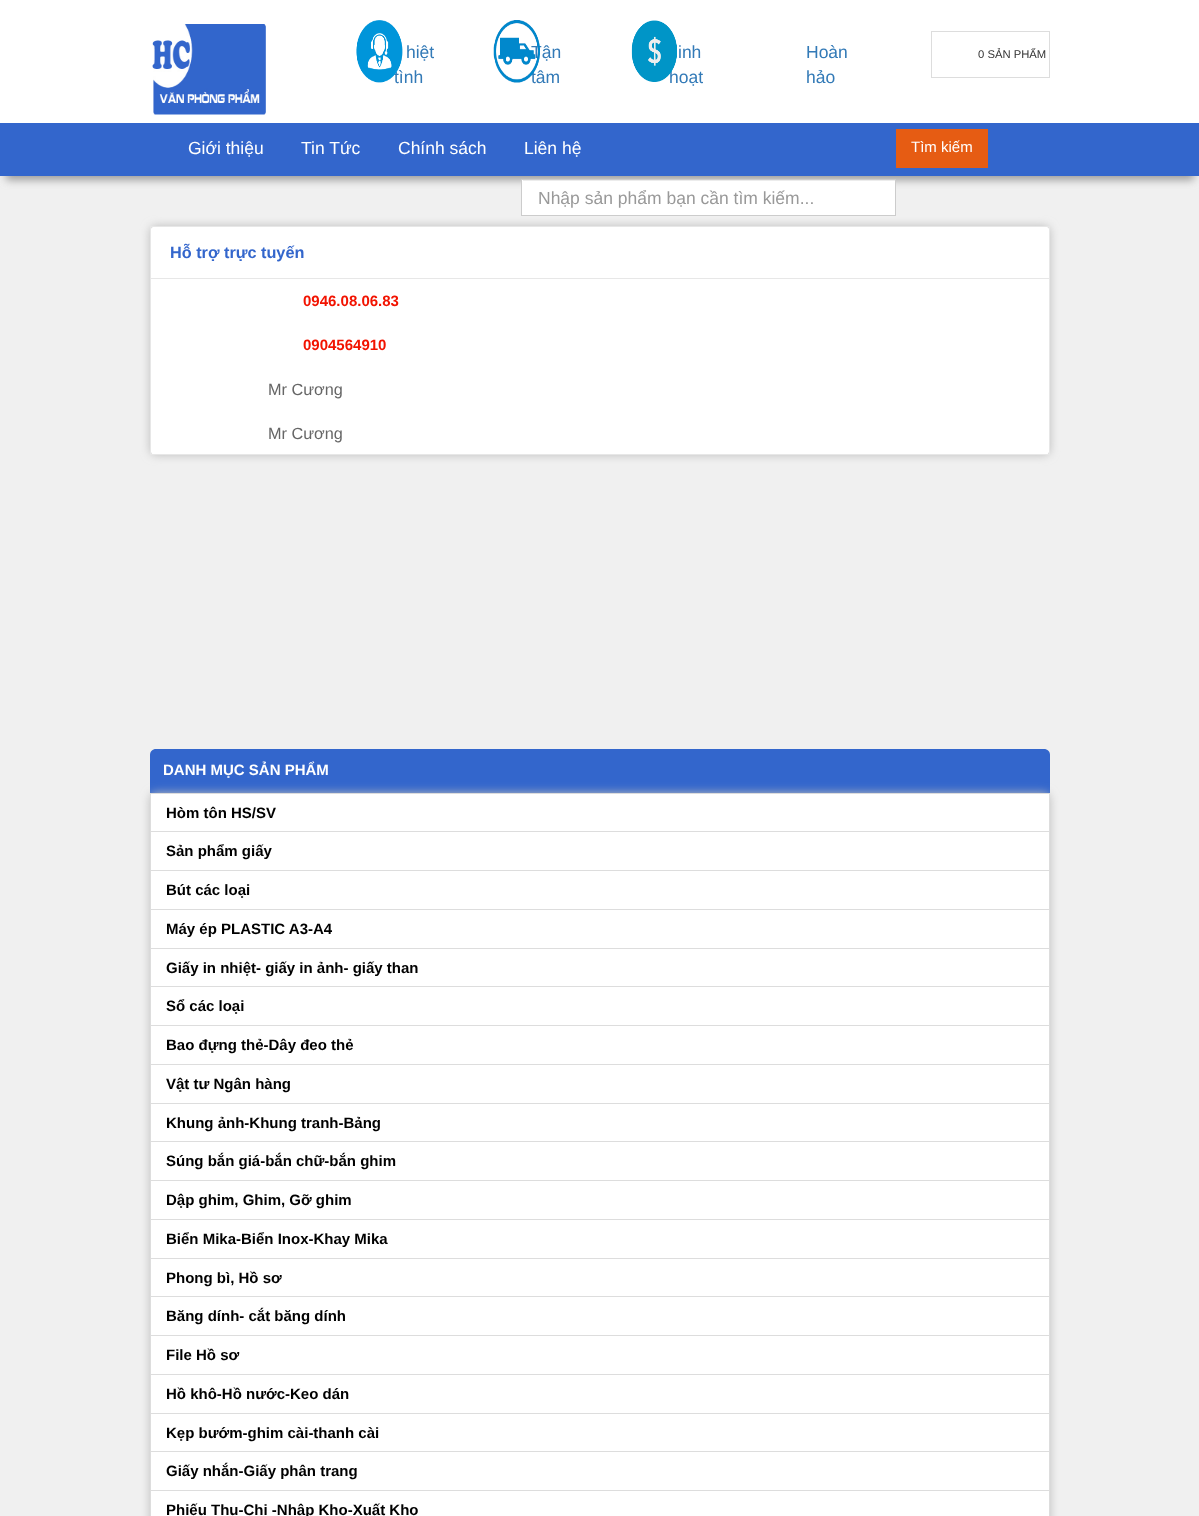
<?xml version="1.0" encoding="UTF-8"?>
<svg xmlns="http://www.w3.org/2000/svg" width="1199" height="1516">
    <defs>
        <filter id="blur1" x="-50%" y="-200%" width="200%" height="500%"><feGaussianBlur stdDeviation="4.5"/></filter>
        <filter id="blur2" x="-50%" y="-200%" width="200%" height="500%"><feGaussianBlur stdDeviation="5"/></filter>
    </defs>
    <rect width="100%" height="100%" fill="#F0F0F0"/>
    <rect x="0" y="0" width="1199" height="123" fill="#FFFFFF"/>
    <image x="152" y="24" width="114" height="91" href="img_01.png"/>
    <text x="394" y="83" font-family="Liberation Sans" font-size="17.5" fill="#337AB7">tình</text>
    <image x="356" y="20" width="47" height="63" href="img_02.png"/>
    <text x="406" y="58" font-family="Liberation Sans" font-size="17.5" fill="#337AB7">hiệt</text>
    <text font-family="Liberation Sans" font-size="17.5" fill="#337AB7">
        <tspan x="531" y="58">Tận</tspan>
        <tspan x="531" y="83">tâm</tspan>
    </text>
    <image x="493" y="20" width="47" height="63" href="img_03.png"/>
    <text x="669" y="83" font-family="Liberation Sans" font-size="17.5" fill="#337AB7">hoạt</text>
    <image x="631" y="20" width="46" height="62" href="img_04.png"/>
    <text x="678" y="58" font-family="Liberation Sans" font-size="17.5" fill="#337AB7">inh</text>
    <text font-family="Liberation Sans" font-size="17.5" fill="#337AB7">
        <tspan x="806" y="58">Hoàn</tspan>
        <tspan x="806" y="83">hảo</tspan>
    </text>
    <rect x="931.5" y="31.5" width="118" height="46" fill="none" stroke="#DDDDDD"/>
    <text x="978" y="58" font-family="Liberation Sans" font-size="11.25" fill="#333333">0 SẢN PHẨM</text>
    <rect x="6" y="139" width="1188" height="41" fill="#9C9C9C" filter="url(#blur1)"/>
    <rect x="0" y="123" width="1199" height="53" fill="#3366CC"/>
    <text x="188" y="154" font-family="Liberation Sans" font-size="17.5" fill="#FFFFFF">Giới thiệu</text>
    <text x="301" y="154" font-family="Liberation Sans" font-size="17.5" fill="#FFFFFF">Tin Tức</text>
    <text x="398" y="154" font-family="Liberation Sans" font-size="17.5" fill="#FFFFFF">Chính sách</text>
    <text x="524" y="154" font-family="Liberation Sans" font-size="17.5" fill="#FFFFFF">Liên hệ</text>
    <rect x="896" y="129" width="92" height="39" fill="#E65C13"/>
    <text x="911" y="152" font-family="Liberation Sans" font-size="15" fill="#FFFFFF">Tìm kiếm</text>
    <rect x="522" y="180" width="373" height="35" fill="#FFFFFF"/>
    <rect x="523" y="180" width="372" height="1" fill="#ECECEC"/>
    <rect x="521.5" y="179.5" width="374" height="36" fill="none" stroke="#CCCCCC"/>
    <text x="538" y="204" font-family="Liberation Sans" font-size="17.5" fill="#999999">Nhập sản phẩm bạn cần tìm kiếm...</text>
    <rect x="150" y="226" width="900" height="229" rx="6" fill="#BDBDBD" filter="url(#blur2)"/>
    <rect x="150" y="226" width="900" height="229" rx="6" fill="#FFFFFF"/>
    <rect x="150.5" y="226.5" width="899" height="52" fill="none" stroke="#E7E7E7"/>
    <text x="170" y="258" font-family="Liberation Sans" font-size="16.25" font-weight="700" fill="#3366CC">Hỗ trợ trực tuyến</text>
    <rect x="1049" y="279" width="1" height="176" fill="#E7E7E7"/>
    <rect x="150" y="454" width="900" height="1" fill="#E7E7E7"/>
    <rect x="150" y="279" width="1" height="176" fill="#E7E7E7"/>
    <text x="303" y="306" font-family="Liberation Sans" font-size="15" font-weight="700" fill="#F21300">0946.08.06.83</text>
    <text x="303" y="350" font-family="Liberation Sans" font-size="15" font-weight="700" fill="#F21300">0904564910</text>
    <text x="268" y="395" font-family="Liberation Sans" font-size="16.25" fill="#666666">Mr Cương</text>
    <text x="268" y="439" font-family="Liberation Sans" font-size="16.25" fill="#666666">Mr Cương</text>
    <path d="M 156 749 H 1044 C 1047.5 749 1050 751.5 1050 755 V 793 H 150 V 755 C 150 751.5 152.5 749 156 749 Z" fill="#3366CC"/>
    <text x="163" y="775" font-family="Liberation Sans" font-size="15" font-weight="700" fill="#FFFFFF">DANH MỤC SẢN PHẨM</text>
    <rect x="150" y="793" width="900" height="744" rx="6" fill="#BDBDBD" filter="url(#blur2)"/>
    <rect x="150.5" y="793.5" width="899" height="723" fill="#FFFFFF" stroke="#DDDDDD"/>
    <rect x="151" y="831" width="898" height="1" fill="#DDDDDD"/>
    <text x="166" y="818" font-family="Liberation Sans" font-size="15" font-weight="700" fill="#000000">Hòm tôn HS/SV</text>
    <rect x="151" y="870" width="898" height="1" fill="#DDDDDD"/>
    <text x="166" y="856" font-family="Liberation Sans" font-size="15" font-weight="700" fill="#000000">Sản phẩm giấy</text>
    <rect x="151" y="909" width="898" height="1" fill="#DDDDDD"/>
    <text x="166" y="895" font-family="Liberation Sans" font-size="15" font-weight="700" fill="#000000">Bút các loại</text>
    <rect x="151" y="948" width="898" height="1" fill="#DDDDDD"/>
    <text x="166" y="934" font-family="Liberation Sans" font-size="15" font-weight="700" fill="#000000">Máy ép PLASTIC A3-A4</text>
    <rect x="151" y="986" width="898" height="1" fill="#DDDDDD"/>
    <text x="166" y="973" font-family="Liberation Sans" font-size="15" font-weight="700" fill="#000000">Giấy in nhiệt- giấy in ảnh- giấy than</text>
    <rect x="151" y="1025" width="898" height="1" fill="#DDDDDD"/>
    <text x="166" y="1011" font-family="Liberation Sans" font-size="15" font-weight="700" fill="#000000">Sổ các loại</text>
    <rect x="151" y="1064" width="898" height="1" fill="#DDDDDD"/>
    <text x="166" y="1050" font-family="Liberation Sans" font-size="15" font-weight="700" fill="#000000">Bao đựng thẻ-Dây đeo thẻ</text>
    <rect x="151" y="1103" width="898" height="1" fill="#DDDDDD"/>
    <text x="166" y="1089" font-family="Liberation Sans" font-size="15" font-weight="700" fill="#000000">Vật tư Ngân hàng</text>
    <rect x="151" y="1141" width="898" height="1" fill="#DDDDDD"/>
    <text x="166" y="1128" font-family="Liberation Sans" font-size="15" font-weight="700" fill="#000000">Khung ảnh-Khung tranh-Bảng</text>
    <rect x="151" y="1180" width="898" height="1" fill="#DDDDDD"/>
    <text x="166" y="1166" font-family="Liberation Sans" font-size="15" font-weight="700" fill="#000000">Súng bắn giá-bắn chữ-bắn ghim</text>
    <rect x="151" y="1219" width="898" height="1" fill="#DDDDDD"/>
    <text x="166" y="1205" font-family="Liberation Sans" font-size="15" font-weight="700" fill="#000000">Dập ghim, Ghim, Gỡ ghim</text>
    <rect x="151" y="1258" width="898" height="1" fill="#DDDDDD"/>
    <text x="166" y="1244" font-family="Liberation Sans" font-size="15" font-weight="700" fill="#000000">Biển Mika-Biển Inox-Khay Mika</text>
    <rect x="151" y="1296" width="898" height="1" fill="#DDDDDD"/>
    <text x="166" y="1283" font-family="Liberation Sans" font-size="15" font-weight="700" fill="#000000">Phong bì, Hồ sơ</text>
    <rect x="151" y="1335" width="898" height="1" fill="#DDDDDD"/>
    <text x="166" y="1321" font-family="Liberation Sans" font-size="15" font-weight="700" fill="#000000">Băng dính- cắt băng dính</text>
    <rect x="151" y="1374" width="898" height="1" fill="#DDDDDD"/>
    <text x="166" y="1360" font-family="Liberation Sans" font-size="15" font-weight="700" fill="#000000">File Hồ sơ</text>
    <rect x="151" y="1413" width="898" height="1" fill="#DDDDDD"/>
    <text x="166" y="1399" font-family="Liberation Sans" font-size="15" font-weight="700" fill="#000000">Hồ khô-Hồ nước-Keo dán</text>
    <rect x="151" y="1451" width="898" height="1" fill="#DDDDDD"/>
    <text x="166" y="1438" font-family="Liberation Sans" font-size="15" font-weight="700" fill="#000000">Kẹp bướm-ghim cài-thanh cài</text>
    <rect x="151" y="1490" width="898" height="1" fill="#DDDDDD"/>
    <text x="166" y="1476" font-family="Liberation Sans" font-size="15" font-weight="700" fill="#000000">Giấy nhắn-Giấy phân trang</text>
    <text x="166" y="1515" font-family="Liberation Sans" font-size="15" font-weight="700" fill="#000000">Phiếu Thu-Chi -Nhập Kho-Xuất Kho</text>
</svg>
